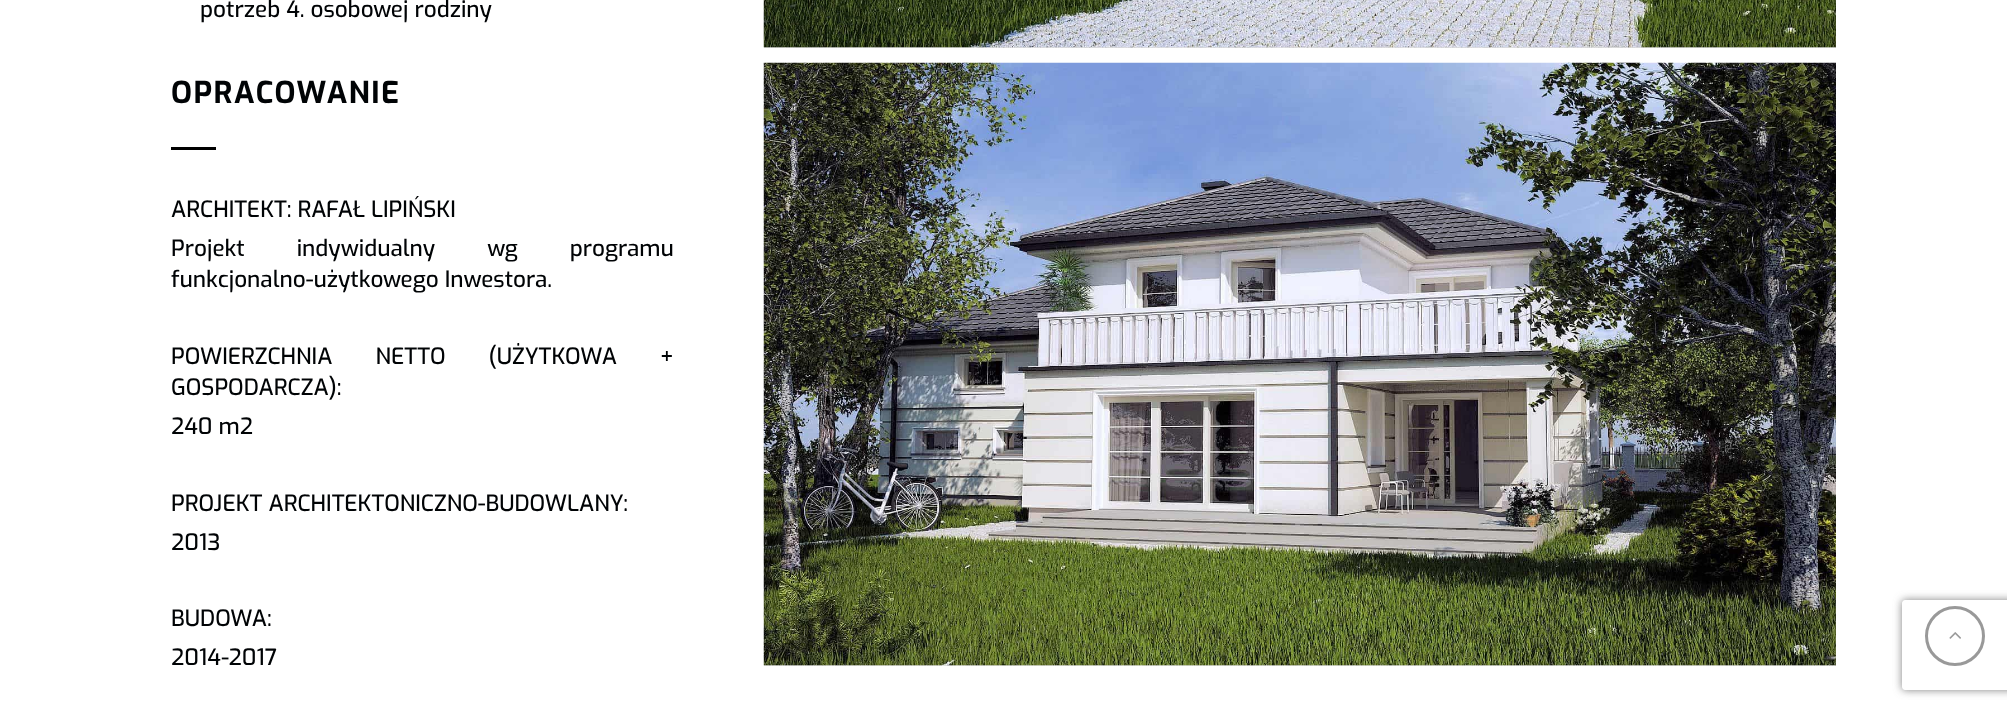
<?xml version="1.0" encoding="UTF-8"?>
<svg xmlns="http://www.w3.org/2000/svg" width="2007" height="710">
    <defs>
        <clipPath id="clip1"><path d="M 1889 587 H 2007 V 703 H 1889 Z M 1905 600 H 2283 C 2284.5 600 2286 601.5 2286 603 V 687 C 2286 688.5 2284.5 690 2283 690 H 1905 C 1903.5 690 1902 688.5 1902 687 V 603 C 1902 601.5 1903.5 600 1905 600 Z" clip-rule="evenodd"/></clipPath>
        <filter id="blur1" x="-50%" y="-200%" width="200%" height="500%"><feGaussianBlur stdDeviation="4"/></filter>
    </defs>
    <rect width="100%" height="100%" fill="#FFFFFF"/>
    <text x="200" y="17" font-family="Exo" font-size="22.5" font-weight="500" fill="#000305">potrzeb 4. osobowej rodziny</text>
    <text x="171" y="103" font-family="Exo" font-size="30" font-weight="700" letter-spacing="1.5" fill="#000305">OPRACOWANIE</text>
    <rect x="171" y="147" width="45" height="3" fill="#000000"/>
    <text font-family="Exo" font-size="22.5" font-weight="500" fill="#000305">
        <tspan x="171" y="217">ARCHITEKT: RAFAŁ LIPIŃSKI</tspan>
        <tspan x="171" y="256" word-spacing="46">Projekt indywidualny wg programu</tspan>
        <tspan x="171" y="287">funkcjonalno-użytkowego Inwestora.</tspan>
    </text>
    <text font-family="Exo" font-size="22.5" font-weight="500" fill="#000305">
        <tspan x="171" y="364" word-spacing="37">POWIERZCHNIA NETTO (UŻYTKOWA +</tspan>
        <tspan x="171" y="395">GOSPODARCZA):</tspan>
        <tspan x="171" y="434">240 m2</tspan>
    </text>
    <text font-family="Exo" font-size="22.5" font-weight="500" fill="#000305">
        <tspan x="171" y="511">PROJEKT ARCHITEKTONICZNO-BUDOWLANY:</tspan>
        <tspan x="171" y="550">2013</tspan>
    </text>
    <text font-family="Exo" font-size="22.5" font-weight="500" fill="#000305">
        <tspan x="171" y="626">BUDOWA:</tspan>
        <tspan x="171" y="665">2014-2017</tspan>
    </text>
    <rect x="764" y="47" width="1072" height="1" fill="#DCDCDC"/>
    <image x="763" y="0" width="1073" height="48" href="img_01.png"/>
    <rect x="764" y="665" width="1072" height="1" fill="#DCDCDC"/>
    <image x="763" y="62" width="1073" height="604" href="img_02.png"/>
    <circle cx="1955" cy="636" r="28.5" fill="none" stroke="#999999" stroke-width="3"/>
    <image x="1949" y="632" width="12" height="7" href="img_03.png"/>
    <g clip-path="url(#clip1)">
        <rect x="1902" y="600" width="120" height="90" rx="3" fill="#808080" filter="url(#blur1)"/>
    </g>
</svg>
